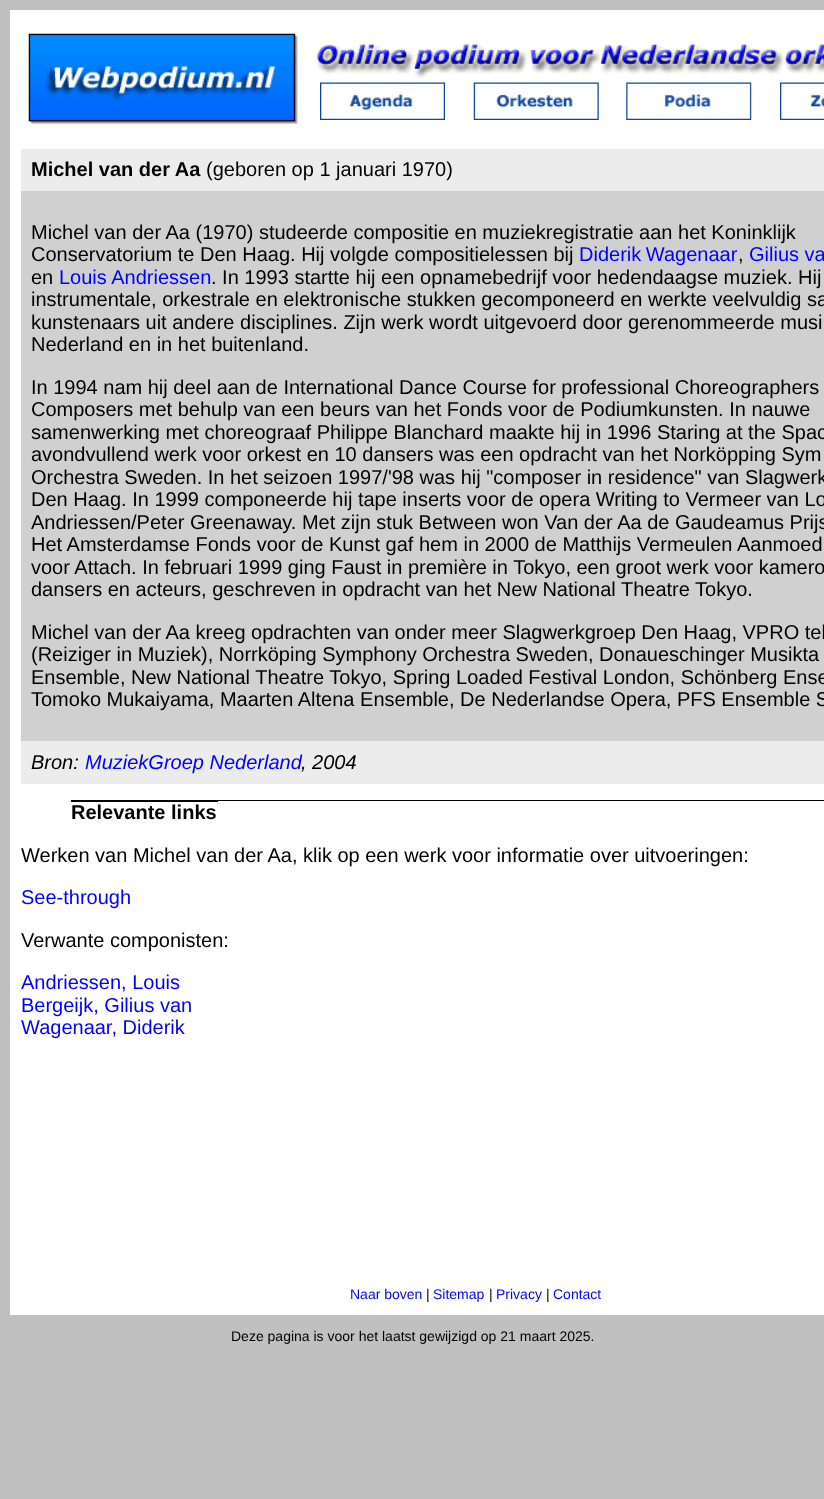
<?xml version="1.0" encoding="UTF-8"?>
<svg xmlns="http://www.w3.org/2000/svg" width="824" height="1499">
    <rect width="100%" height="100%" fill="#C0C0C0"/>
    <rect x="10" y="10" width="814" height="1305" fill="#FFFFFF"/>
    <image x="28" y="33" width="270" height="91" href="img_01.png"/>
    <image x="316" y="43" width="508" height="35" href="img_02.png"/>
    <image x="320" y="82" width="125" height="38" href="img_03.png"/>
    <image x="473" y="82" width="126" height="38" href="img_04.png"/>
    <image x="626" y="82" width="126" height="38" href="img_05.png"/>
    <image x="780" y="82" width="44" height="38" href="img_06.png"/>
    <rect x="21" y="149" width="803" height="42" fill="#ECECEC"/>
    <text x="31" y="176" font-family="Liberation Sans" font-size="20" font-weight="700" fill="#000000">Michel van der Aa</text>
    <text x="206" y="176" font-family="Liberation Sans" font-size="20" fill="#000000">(geboren op 1 januari 1970)</text>
    <rect x="21" y="191" width="803" height="550" fill="#D0D0D0"/>
    <text font-family="Liberation Sans" font-size="20" fill="#000000">
        <tspan x="31" y="239">Michel van der Aa (1970) studeerde compositie en muziekregistratie aan het Koninklijk</tspan>
        <tspan x="31" y="261">Conservatorium te Den Haag. Hij volgde compositielessen bij</tspan>
    </text>
    <text x="579" y="261" word-spacing="-1" font-family="Liberation Sans" font-size="20" fill="#0000FF">Diderik Wagenaar</text>
    <text x="738" y="261" font-family="Liberation Sans" font-size="20" fill="#000000">,</text>
    <text x="749" y="261" font-family="Liberation Sans" font-size="20" fill="#0000FF">Gilius va</text>
    <text x="31" y="284" font-family="Liberation Sans" font-size="20" fill="#000000">en</text>
    <text x="59" y="284" font-family="Liberation Sans" font-size="20" fill="#0000FF">Louis Andriessen</text>
    <text x="211" y="284" font-family="Liberation Sans" font-size="20" fill="#000000">. In 1993 startte hij een opnamebedrijf voor hedendaagse muziek. Hij</text>
    <text font-family="Liberation Sans" font-size="20" fill="#000000">
        <tspan x="31" y="306">instrumentale, orkestrale en elektronische stukken gecomponeerd en werkte veelvuldig sa</tspan>
        <tspan x="31" y="329">kunstenaars uit andere disciplines. Zijn werk wordt uitgevoerd door gerenommeerde musi</tspan>
        <tspan x="31" y="351">Nederland en in het buitenland.</tspan>
    </text>
    <text font-family="Liberation Sans" font-size="20" fill="#000000">
        <tspan x="31" y="394">In 1994 nam hij deel aan de International Dance Course for professional Choreographers</tspan>
        <tspan x="31" y="416">Composers met behulp van een beurs van het Fonds voor de Podiumkunsten. In nauwe</tspan>
        <tspan x="31" y="439">samenwerking met choreograaf Philippe Blanchard maakte hij in 1996 Staring at the Spac</tspan>
        <tspan x="31" y="461">avondvullend werk voor orkest en 10 dansers was een opdracht van het Norköpping Sym</tspan>
        <tspan x="31" y="484">Orchestra Sweden. In het seizoen 1997/'98 was hij "composer in residence" van Slagwerk</tspan>
        <tspan x="31" y="506">Den Haag. In 1999 componeerde hij tape inserts voor de opera Writing to Vermeer van Lo</tspan>
        <tspan x="31" y="529">Andriessen/Peter Greenaway. Met zijn stuk Between won Van der Aa de Gaudeamus Prijs</tspan>
        <tspan x="31" y="551">Het Amsterdamse Fonds voor de Kunst gaf hem in 2000 de Matthijs Vermeulen Aanmoed</tspan>
        <tspan x="31" y="574">voor Attach. In februari 1999 ging Faust in première in Tokyo, een groot werk voor kamero</tspan>
        <tspan x="31" y="596">dansers en acteurs, geschreven in opdracht van het New National Theatre Tokyo.</tspan>
    </text>
    <text font-family="Liberation Sans" font-size="20" fill="#000000">
        <tspan x="31" y="639">Michel van der Aa kreeg opdrachten van onder meer Slagwerkgroep Den Haag, VPRO tel</tspan>
        <tspan x="31" y="661">(Reiziger in Muziek), Norrköping Symphony Orchestra Sweden, Donaueschinger Musikta</tspan>
        <tspan x="31" y="684">Ensemble, New National Theatre Tokyo, Spring Loaded Festival London, Schönberg Ense</tspan>
        <tspan x="31" y="706">Tomoko Mukaiyama, Maarten Altena Ensemble, De Nederlandse Opera, PFS Ensemble S</tspan>
    </text>
    <rect x="21" y="741" width="803" height="43" fill="#ECECEC"/>
    <text x="31" y="769" font-family="Liberation Sans" font-size="20" font-style="italic" fill="#000000">Bron:</text>
    <text x="85" y="769" font-family="Liberation Sans" font-size="20" font-style="italic" fill="#0000FF">MuziekGroep Nederland</text>
    <text x="301" y="769" font-family="Liberation Sans" font-size="20" font-style="italic" fill="#000000">, 2004</text>
    <rect x="71" y="800" width="753" height="1" fill="#000000"/>
    <text x="71" y="819" font-family="Liberation Sans" font-size="20" font-weight="700" fill="#000000">Relevante links</text>
    <rect x="71" y="801" width="147" height="1" fill="#000000"/>
    <text x="21" y="862" font-family="Liberation Sans" font-size="20" fill="#000000">Werken van Michel van der Aa, klik op een werk voor informatie over uitvoeringen:</text>
    <text x="21" y="904" font-family="Liberation Sans" font-size="20" fill="#0000FF">See-through</text>
    <text x="21" y="947" font-family="Liberation Sans" font-size="20" fill="#000000">Verwante componisten:</text>
    <text font-family="Liberation Sans" font-size="20" fill="#0000FF">
        <tspan x="21" y="989">Andriessen, Louis</tspan>
        <tspan x="21" y="1012">Bergeijk, Gilius van</tspan>
        <tspan x="21" y="1034">Wagenaar, Diderik</tspan>
    </text>
    <text x="350" y="1299" font-family="Liberation Sans" font-size="14" fill="#0000FF">Naar boven</text>
    <text x="426" y="1299" font-family="Liberation Sans" font-size="14" fill="#000000">|</text>
    <text x="433" y="1299" font-family="Liberation Sans" font-size="14" fill="#0000FF">Sitemap</text>
    <text x="489" y="1299" font-family="Liberation Sans" font-size="14" fill="#000000">|</text>
    <text x="496" y="1299" font-family="Liberation Sans" font-size="14" fill="#0000FF">Privacy</text>
    <text x="546" y="1299" font-family="Liberation Sans" font-size="14" fill="#000000">|</text>
    <text x="553" y="1299" font-family="Liberation Sans" font-size="14" fill="#0000FF">Contact</text>
    <text x="231" y="1341" font-family="Liberation Sans" font-size="14" fill="#000000">Deze pagina is voor het laatst gewijzigd op 21 maart 2025.</text>
</svg>
